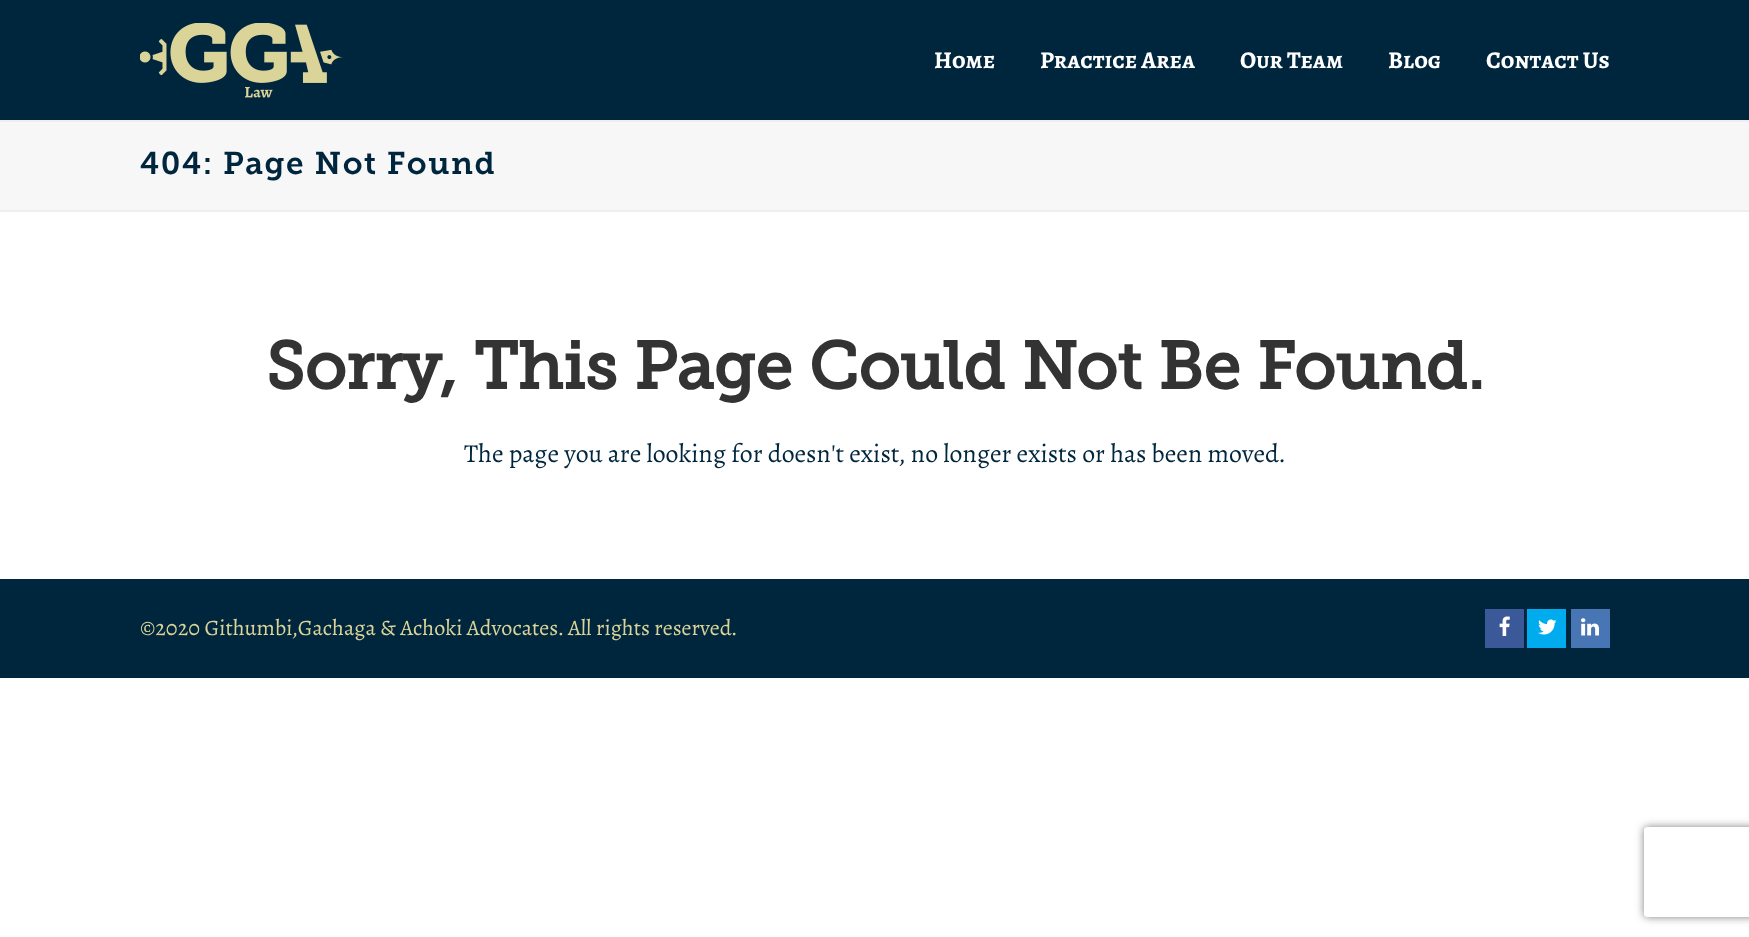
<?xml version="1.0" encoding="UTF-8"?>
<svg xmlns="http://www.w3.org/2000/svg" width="1749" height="937">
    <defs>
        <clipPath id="clip1"><path d="M 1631 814 H 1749 V 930 H 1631 Z M 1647 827 H 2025 C 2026.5 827 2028 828.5 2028 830 V 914 C 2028 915.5 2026.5 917 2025 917 H 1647 C 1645.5 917 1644 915.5 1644 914 V 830 C 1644 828.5 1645.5 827 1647 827 Z" clip-rule="evenodd"/></clipPath>
        <filter id="blur1" x="-50%" y="-200%" width="200%" height="500%"><feGaussianBlur stdDeviation="4"/></filter>
    </defs>
    <rect width="100%" height="100%" fill="#FFFFFF"/>
    <rect x="0" y="0" width="1749" height="120" fill="#00263E"/>
    <image x="140" y="23" width="203" height="75" href="img_01.png"/>
    <text x="934" y="68" font-family="Alegreya SC" font-size="24" font-weight="700" fill="#FFFFFF">Home</text>
    <text x="1040" y="68" font-family="Alegreya SC" font-size="24" font-weight="700" fill="#FFFFFF">Practice Area</text>
    <text x="1240" y="68" font-family="Alegreya SC" font-size="24" font-weight="700" fill="#FFFFFF">Our Team</text>
    <text x="1388" y="68" font-family="Alegreya SC" font-size="24" font-weight="700" fill="#FFFFFF">Blog</text>
    <text x="1486" y="68" font-family="Alegreya SC" font-size="24" font-weight="700" fill="#FFFFFF">Contact Us</text>
    <rect x="0" y="122" width="1749" height="88" fill="#F7F7F7"/>
    <rect x="0" y="120" width="1749" height="2" fill="#EEEEEE"/>
    <rect x="0" y="210" width="1749" height="2" fill="#EEEEEE"/>
    <text x="140" y="174" font-family="Museo Slab" font-size="31.5" letter-spacing="1.5" fill="#00263E">404: Page Not Found</text>
    <text x="266" y="389" font-family="Museo Slab" font-size="66.5" font-weight="700" fill="#333333">Sorry, This Page Could Not Be Found.</text>
    <text x="464" y="462" font-family="Alegreya" font-size="25.85" fill="#00263E">The page you are looking for doesn't exist, no longer exists or has been moved.</text>
    <rect x="0" y="579" width="1749" height="99" fill="#00263E"/>
    <text x="140" y="635" font-family="Alegreya" font-size="22.15" fill="#DBD499">©2020 Githumbi,Gachaga &amp; Achoki Advocates. All rights reserved.</text>
    <rect x="1485" y="609" width="39" height="39" fill="#3B5998"/>
    <image x="1499" y="616" width="11" height="20" href="img_02.png"/>
    <rect x="1527" y="609" width="39" height="39" fill="#00ACED"/>
    <image x="1538" y="619" width="19" height="16" href="img_03.png"/>
    <rect x="1571" y="609" width="39" height="39" fill="#4875B4"/>
    <image x="1581" y="618" width="18" height="18" href="img_04.png"/>
    <g clip-path="url(#clip1)">
        <rect x="1644" y="827" width="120" height="90" rx="3" fill="#808080" filter="url(#blur1)"/>
    </g>
</svg>
